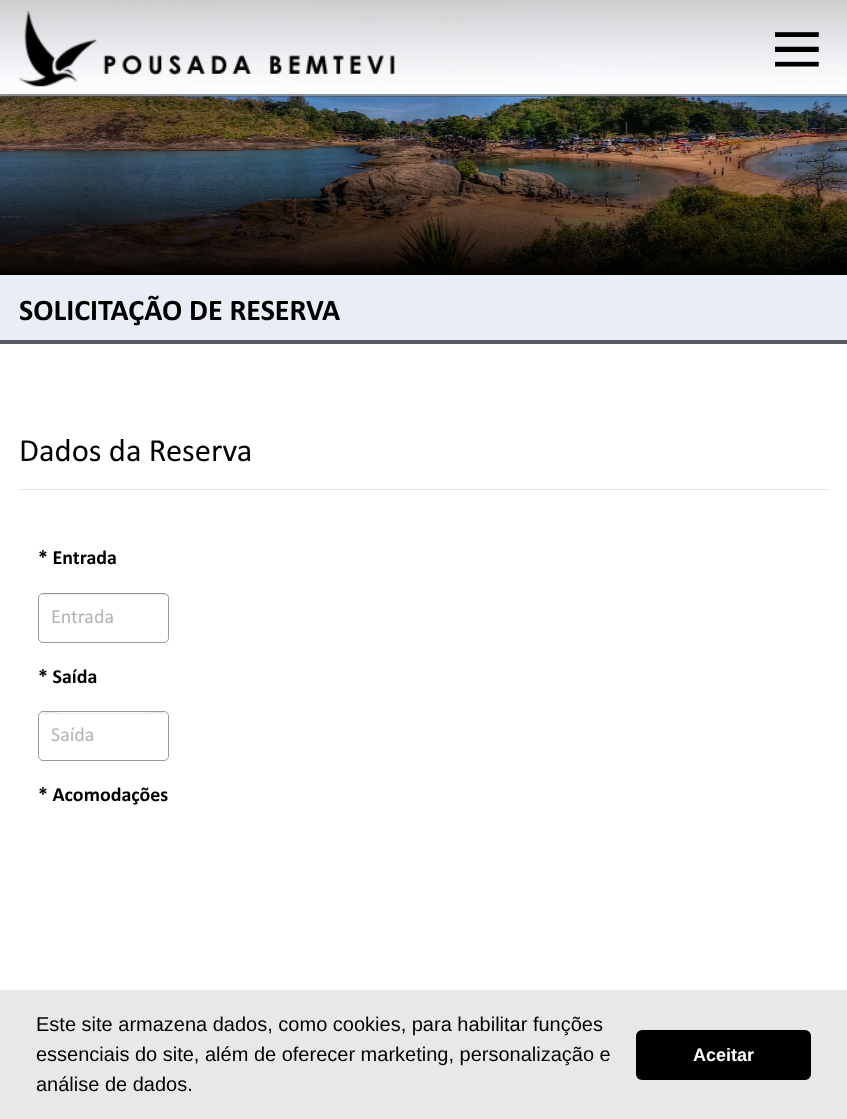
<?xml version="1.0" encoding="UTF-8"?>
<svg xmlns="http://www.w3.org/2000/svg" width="847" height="1119">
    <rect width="100%" height="100%" fill="#FFFFFF"/>
    <image x="0" y="0" width="847" height="275" href="img_01.png"/>
    <image x="18" y="10" width="377" height="77" href="img_02.png"/>
    <rect x="0" y="94" width="847" height="3" fill="#464C55" fill-opacity="0.55"/>
    <image x="775" y="32" width="44" height="35" href="img_03.png"/>
    <rect x="0" y="275" width="847" height="65" fill="#E9EDF5"/>
    <rect x="0" y="340" width="847" height="4" fill="#565C65"/>
    <text x="19" y="320" font-family="Calibri" font-size="30" font-weight="700" fill="#000000">SOLICITAÇÃO DE RESERVA</text>
    <rect x="19" y="489" width="810" height="1" fill="#E5E5E5"/>
    <text x="19" y="461" font-family="Calibri" font-size="32.5" fill="#000000">Dados da Reserva</text>
    <text x="38" y="564" font-family="Calibri" font-size="20" font-weight="700" fill="#000000">* Entrada</text>
    <path d="M 42 595 H 164 C 166 595 168 597 168 599 C 168 589 146 594 144 594 H 63 C 61 594 39 589 39 599 C 39 597 40 595 42 595 Z" fill="#ECECEC"/>
    <rect x="38.5" y="593.5" width="130" height="49" rx="4.5" fill="none" stroke="#999999"/>
    <text x="51" y="623" font-family="Calibri" font-size="20" fill="#B3B3B3">Entrada</text>
    <text x="38" y="683" font-family="Calibri" font-size="20" font-weight="700" fill="#000000">* Saída</text>
    <path d="M 42 714 H 164 C 166 714 168 715 168 718 C 168 708 146 713 144 713 H 63 C 61 713 39 708 39 718 C 39 715 40 714 42 714 Z" fill="#ECECEC"/>
    <rect x="38.5" y="711.5" width="130" height="49" rx="4.5" fill="none" stroke="#999999"/>
    <text x="51" y="741" font-family="Calibri" font-size="20" fill="#B3B3B3">Saída</text>
    <text x="38" y="801" font-family="Calibri" font-size="20" font-weight="700" fill="#000000">* Acomodações</text>
    <rect x="0" y="990" width="847" height="129" fill="#EAE7E7"/>
    <text font-family="Liberation Sans" font-size="20" fill="#000000">
        <tspan x="36" y="1031">Este site armazena dados, como cookies, para habilitar funções</tspan>
        <tspan x="36" y="1061">essenciais do site, além de oferecer marketing, personalização e</tspan>
        <tspan x="36" y="1091">análise de dados.</tspan>
    </text>
    <rect x="636" y="1030" width="175" height="50" rx="6" fill="#000000"/>
    <text x="693" y="1061" font-family="Liberation Sans" font-size="18" font-weight="700" fill="#FFFFFF">Aceitar</text>
</svg>
